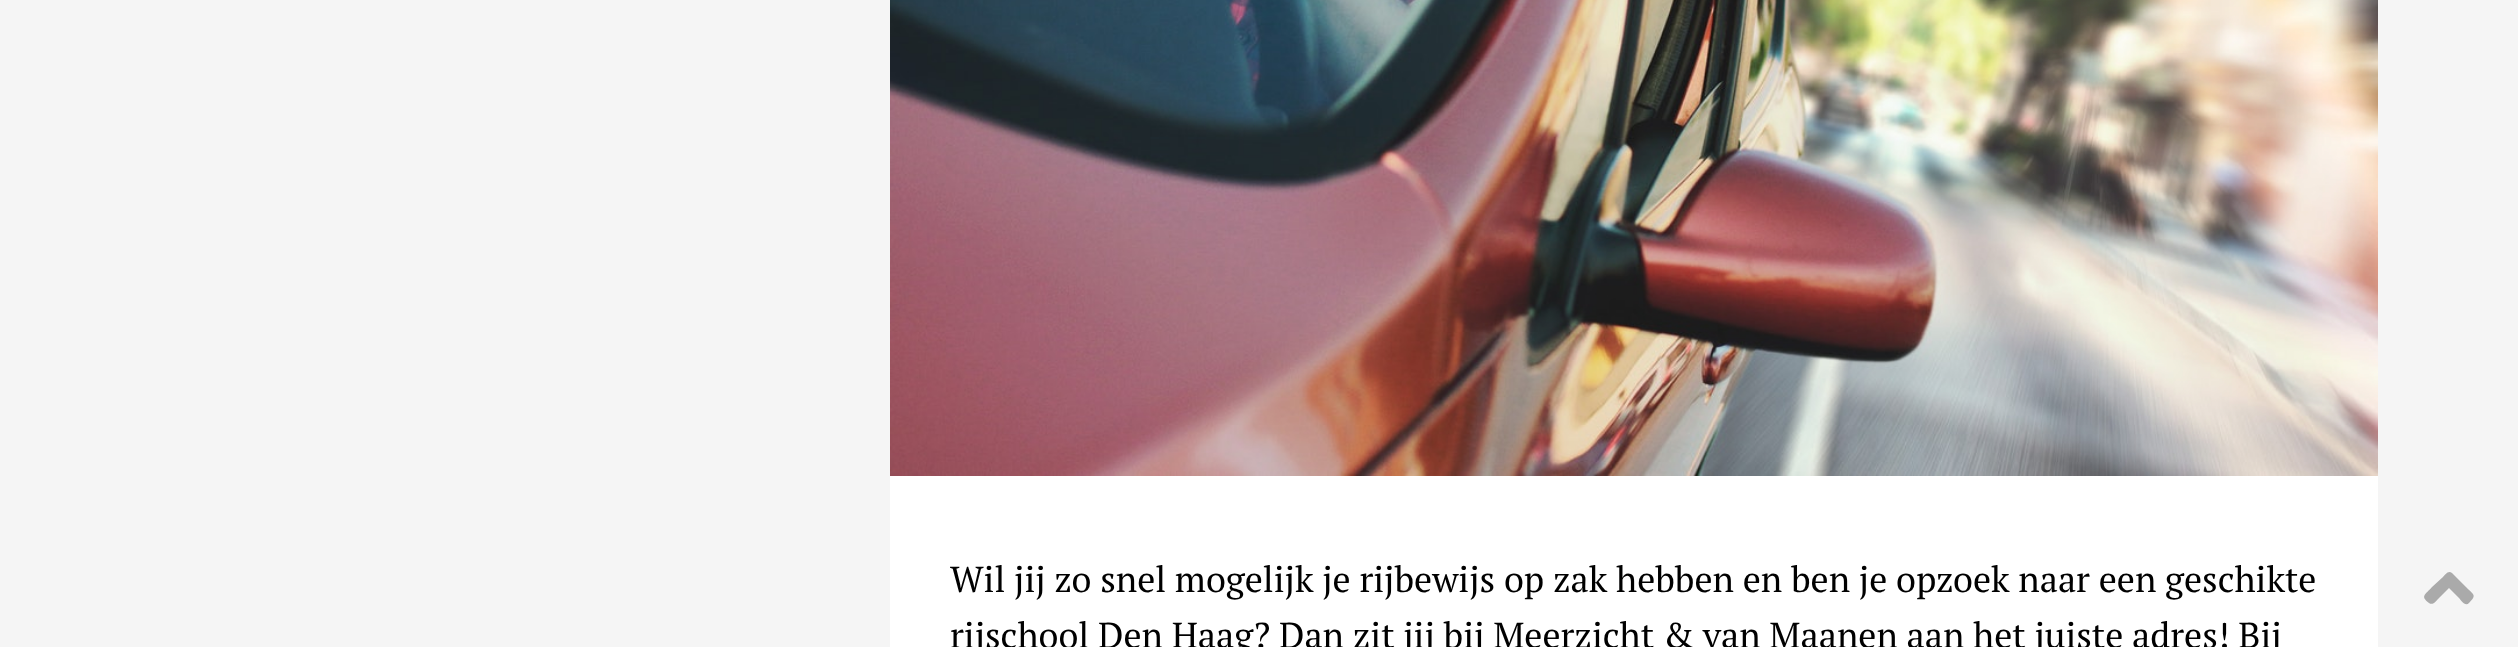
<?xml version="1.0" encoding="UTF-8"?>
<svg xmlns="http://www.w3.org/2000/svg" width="2518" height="647">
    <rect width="100%" height="100%" fill="#F5F5F5"/>
    <rect x="890" y="476" width="1488" height="171" fill="#FFFFFF"/>
    <image x="890" y="0" width="1488" height="476" href="img_01.png"/>
    <text font-family="PT Serif" font-size="36" fill="#000000">
        <tspan x="950" y="592">Wil jij zo snel mogelijk je rijbewijs op zak hebben en ben je opzoek naar een geschikte</tspan>
        <tspan x="950" y="648">rijschool Den Haag? Dan zit jij bij Meerzicht &amp; van Maanen aan het juiste adres! Bij</tspan>
    </text>
    <path d="M 2452 573 L 2466 587 C 2474 595 2477 595 2469 603 C 2465 607 2461 600 2459 598 L 2449 588 L 2439 598 C 2437 600 2433 606 2429 603 C 2420 596 2425 595 2432 587 L 2443 577 C 2445 575 2448 570 2452 573 Z" fill="#AAAAAA"/>
</svg>
